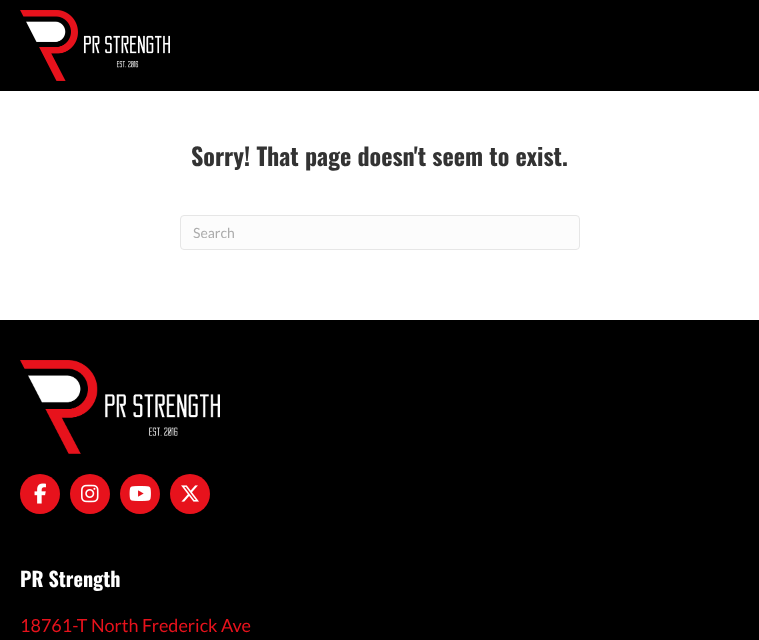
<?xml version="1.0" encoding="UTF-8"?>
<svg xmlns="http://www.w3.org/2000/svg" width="759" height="640">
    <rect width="100%" height="100%" fill="#FFFFFF"/>
    <rect x="0" y="0" width="759" height="91" fill="#000000"/>
    <image x="20" y="10" width="150" height="71" href="img_01.png"/>
    <text x="191" y="166" font-family="Oswald" font-size="24" font-weight="700" fill="#333333">Sorry! That page doesn't seem to exist.</text>
    <rect x="180.5" y="215.5" width="399" height="34" rx="3.5" fill="#FCFCFC" stroke="#E6E6E6"/>
    <text x="193" y="238" font-family="Lato" font-size="14" fill="#ACACAC">Search</text>
    <rect x="0" y="320" width="759" height="320" fill="#000000"/>
    <image x="20" y="360" width="200" height="94" href="img_02.png"/>
    <circle cx="40" cy="494" r="20" fill="#E7121C"/>
    <image x="34" y="483" width="12" height="21" href="img_03.png"/>
    <circle cx="90" cy="494" r="20" fill="#E7121C"/>
    <image x="81" y="484" width="18" height="19" href="img_04.png"/>
    <circle cx="140" cy="494" r="20" fill="#E7121C"/>
    <image x="129" y="486" width="22" height="15" href="img_05.png"/>
    <circle cx="190" cy="494" r="20" fill="#E7121C"/>
    <image x="181" y="485" width="18" height="17" href="img_06.png"/>
    <text x="20" y="587" font-family="Oswald" font-size="20" font-weight="700" fill="#FFFFFF">PR Strength</text>
    <text x="20" y="632" font-family="Lato" font-size="18" fill="#E7121C">18761-T North Frederick Ave</text>
</svg>
